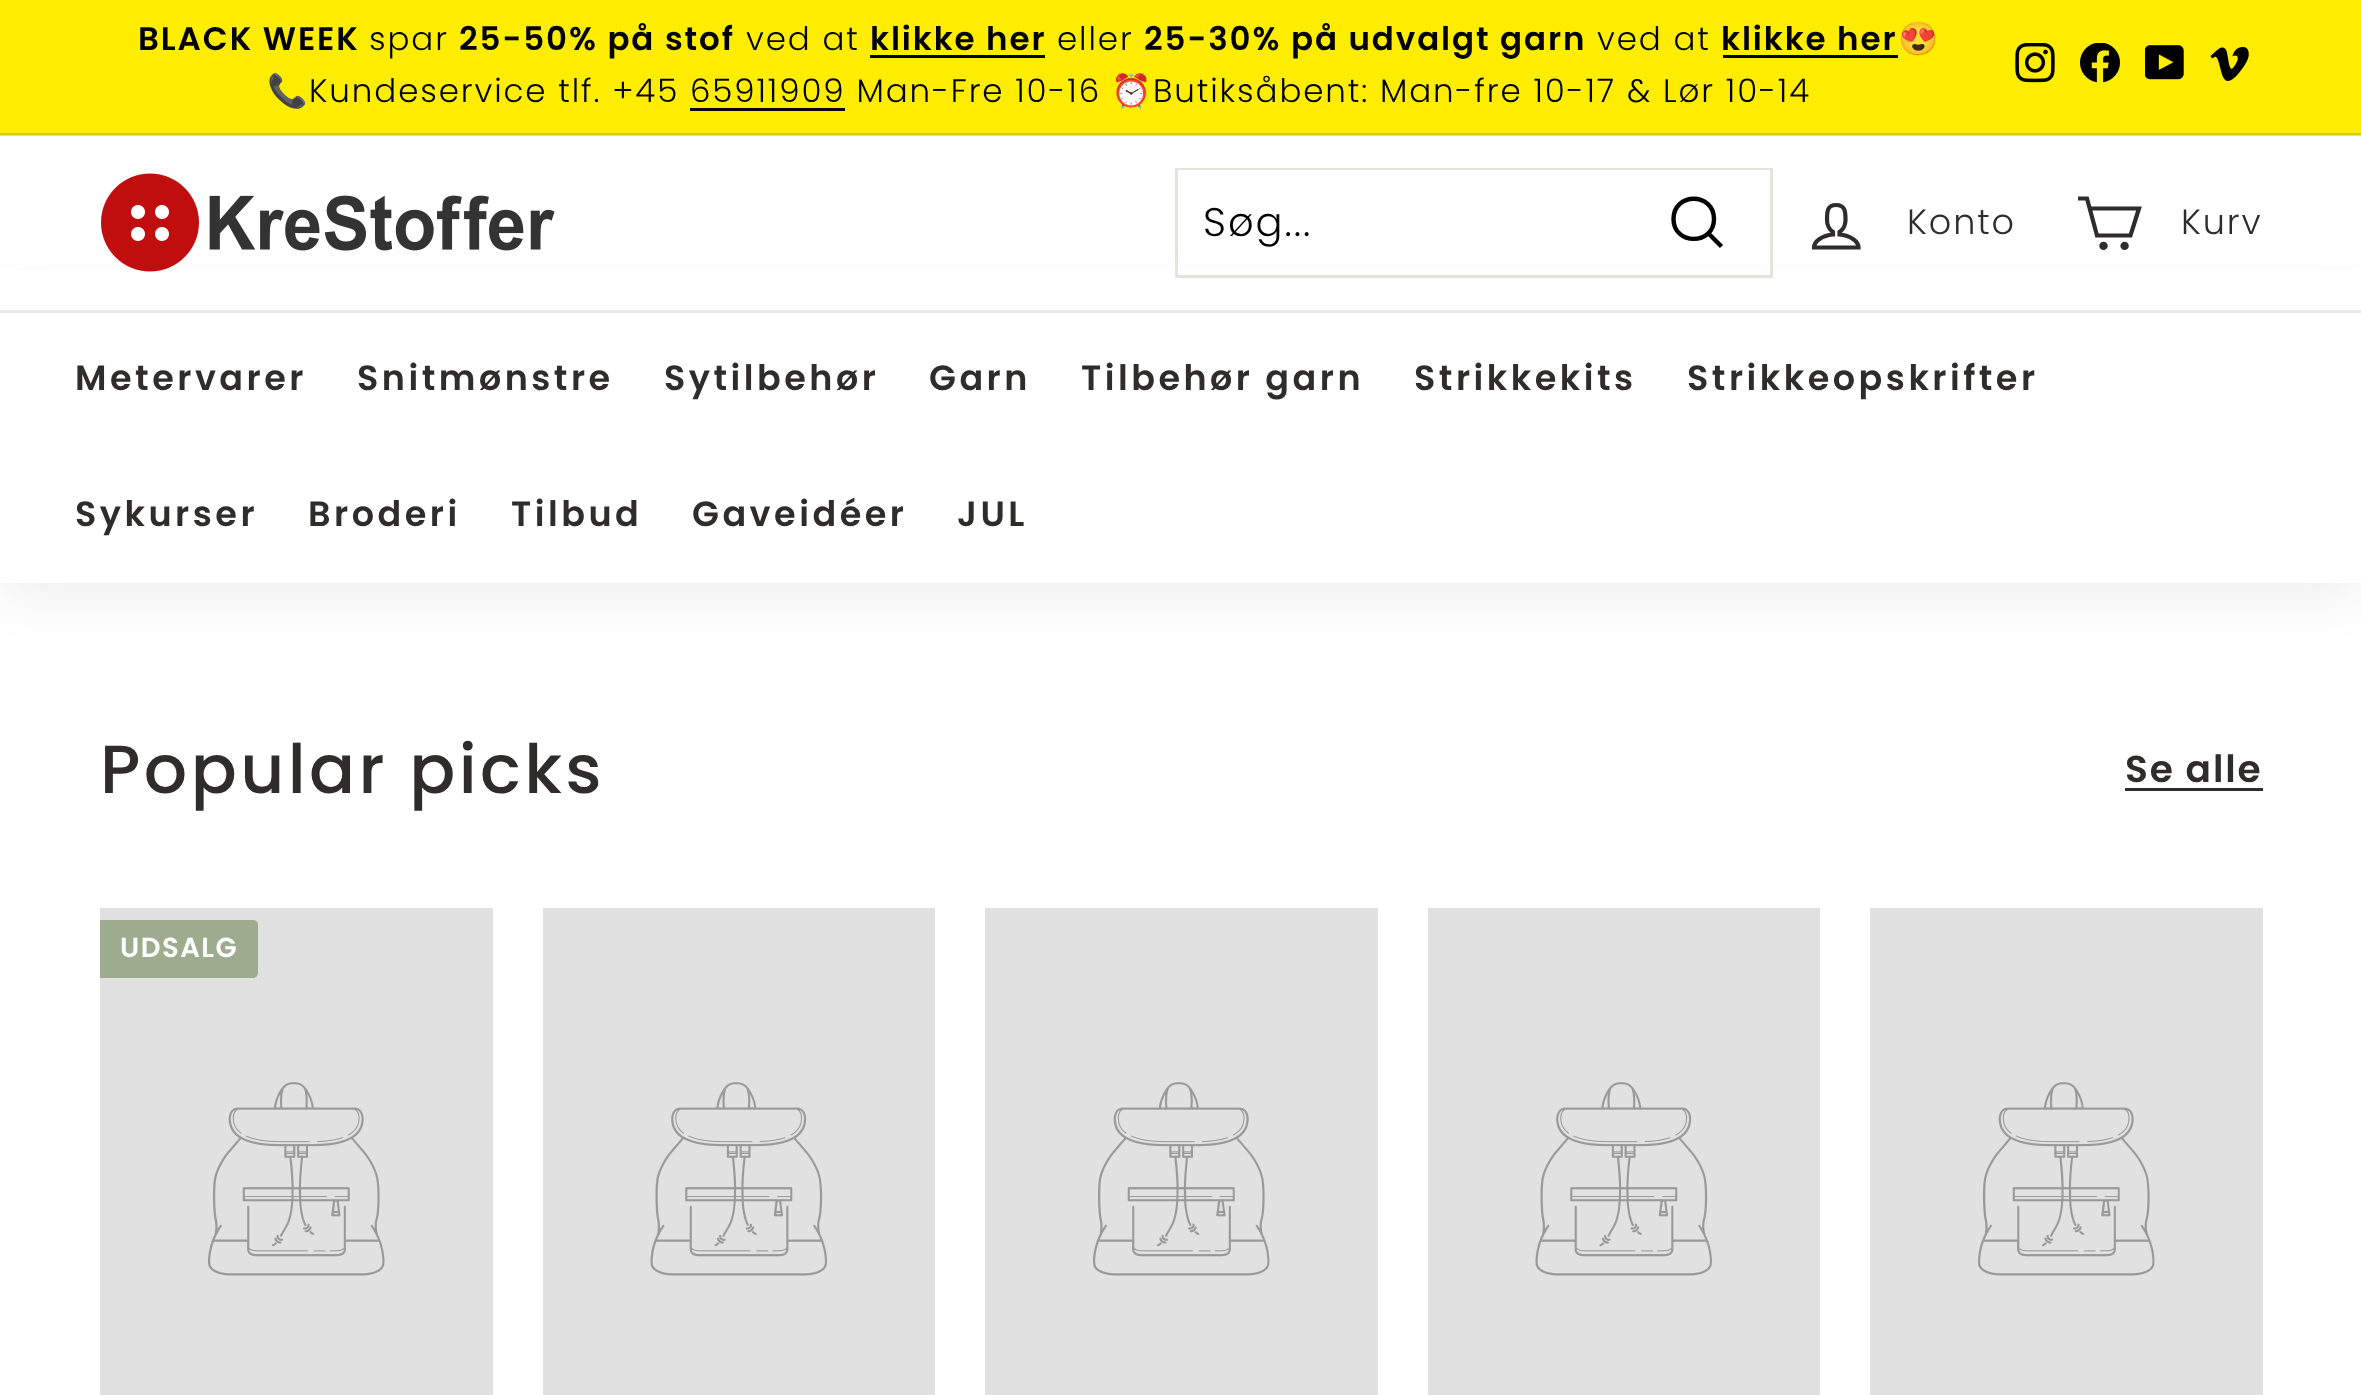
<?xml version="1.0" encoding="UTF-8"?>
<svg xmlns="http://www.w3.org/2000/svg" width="2361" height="1395">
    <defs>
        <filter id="blur1" x="-50%" y="-200%" width="200%" height="500%"><feGaussianBlur stdDeviation="31"/></filter>
    </defs>
    <rect width="100%" height="100%" fill="#FFFFFF"/>
    <rect x="0" y="0" width="2361" height="135" fill="#FFED00"/>
    <text x="138" y="50" font-family="Poppins" font-size="32.5" font-weight="600" letter-spacing="1.9" fill="#000000">BLACK WEEK</text>
    <text x="369" y="50" font-family="Poppins" font-size="32.5" font-weight="300" letter-spacing="1.9" fill="#000000">spar</text>
    <text x="459" y="50" font-family="Poppins" font-size="32.5" font-weight="600" letter-spacing="1.9" fill="#000000">25-50% på stof</text>
    <text x="746" y="50" font-family="Poppins" font-size="32.5" font-weight="300" letter-spacing="1.9" fill="#000000">ved at</text>
    <text x="870" y="50" font-family="Poppins" font-size="32.5" font-weight="600" letter-spacing="1.9" fill="#000000">klikke her</text>
    <rect x="870" y="55" width="175" height="3" fill="#000000"/>
    <text x="1057" y="50" font-family="Poppins" font-size="32.5" font-weight="300" letter-spacing="1.9" fill="#000000">eller</text>
    <text x="1144" y="50" font-family="Poppins" font-size="32.5" font-weight="600" letter-spacing="1.9" fill="#000000">25-30% på udvalgt garn</text>
    <text x="1597" y="50" font-family="Poppins" font-size="32.5" font-weight="300" letter-spacing="1.9" fill="#000000">ved at</text>
    <text x="1721" y="50" font-family="Poppins" font-size="32.5" font-weight="600" letter-spacing="1.9" fill="#000000">klikke her</text>
    <rect x="1723" y="55" width="175" height="3" fill="#000000"/>
    <text x="1898" y="50" font-family="Noto Color Emoji" font-size="32.5" letter-spacing="1.9" fill="#000000">😍</text>
    <text x="267" y="102" font-family="Noto Color Emoji" font-size="32.5" letter-spacing="1.9" fill="#000000">📞</text>
    <text x="309" y="102" font-family="Poppins" font-size="32.5" font-weight="300" letter-spacing="1.9" fill="#000000">Kundeservice tlf. +45 65911909 Man-Fre 10-16</text>
    <text x="1111" y="102" font-family="Noto Color Emoji" font-size="32.5" letter-spacing="1.9" fill="#000000">⏰</text>
    <text x="1153" y="102" font-family="Poppins" font-size="32.5" font-weight="300" letter-spacing="1.9" fill="#000000">Butiksåbent: Man-fre 10-17 &amp; Lør 10-14</text>
    <rect x="690" y="108" width="155" height="3" fill="#000000"/>
    <image x="2015" y="43" width="40" height="40" href="img_01.png"/>
    <image x="2080" y="43" width="40" height="40" href="img_02.png"/>
    <image x="2145" y="45" width="39" height="35" href="img_03.png"/>
    <image x="2210" y="47" width="39" height="34" href="img_04.png"/>
    <rect x="0" y="133" width="2361" height="3" fill="#000000" fill-opacity="0.15"/>
    <rect x="0" y="310" width="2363" height="273" fill="#000000" fill-opacity="0.1" filter="url(#blur1)"/>
    <rect x="0" y="270" width="2361" height="40" fill="#FFFFFF"/>
    <image x="101" y="173" width="454" height="99" href="img_05.png"/>
    <rect x="1176.5" y="169.5" width="595" height="107" fill="none" stroke="#E1E6DB" stroke-width="3"/>
    <rect x="1178" y="170" width="592" height="1" fill="#FFFFFF"/>
    <text x="1203" y="236" font-family="Poppins" font-size="40" font-weight="300" letter-spacing="2" fill="#000000">Søg...</text>
    <path d="M 1714 219 C 1714 245.5 1673.5 245.5 1673.5 219 C 1673.5 192 1714 192 1714 219 Z M 1721.5 246.5 L 1708.5 233.5" fill="none" stroke="#000000" stroke-width="4.4"/>
    <path d="M 1839.5 234.5 V 232 C 1843 230 1845.5 225 1845.5 220 C 1845.5 212 1845.5 205 1836 205 C 1827 205 1827 212 1827 220 C 1827 225 1829.5 230 1833 232 V 234.5 C 1822.5 235.5 1814 241 1814 247.5 H 1858.5 C 1858.5 241 1850 235.5 1839.5 234.5 Z" fill="none" stroke="#2E2D2C" stroke-width="4.2"/>
    <text x="1907" y="234" font-family="Poppins" font-size="35" font-weight="300" letter-spacing="1.9" fill="#2E2D2C">Konto</text>
    <path d="M 2090 208.5 H 2139 L 2130.5 235.5 H 2097 L 2087 198.5 H 2078" fill="none" stroke="#2E2D2C" stroke-width="4.2"/>
    <circle cx="2103.5" cy="245.9" r="2.1" fill="none" stroke="#2E2D2C" stroke-width="4.2"/>
    <circle cx="2124.6" cy="245.9" r="2.1" fill="none" stroke="#2E2D2C" stroke-width="4.2"/>
    <text x="2181" y="234" font-family="Poppins" font-size="35" font-weight="300" letter-spacing="1.9" fill="#2E2D2C">Kurv</text>
    <rect x="0" y="313" width="2361" height="270" fill="#FFFFFF"/>
    <rect x="0" y="310" width="2361" height="3" fill="#EAEAEA"/>
    <text x="75" y="390" font-family="Poppins" font-size="35" font-weight="600" letter-spacing="3.5" fill="#2E2D2C">Metervarer</text>
    <text x="357" y="390" font-family="Poppins" font-size="35" font-weight="600" letter-spacing="3.5" fill="#2E2D2C">Snitmønstre</text>
    <text x="664" y="390" font-family="Poppins" font-size="35" font-weight="600" letter-spacing="3.5" fill="#2E2D2C">Sytilbehør</text>
    <text x="929" y="390" font-family="Poppins" font-size="35" font-weight="600" letter-spacing="3.5" fill="#2E2D2C">Garn</text>
    <text x="1081" y="390" font-family="Poppins" font-size="35" font-weight="600" letter-spacing="3.5" fill="#2E2D2C">Tilbehør garn</text>
    <text x="1414" y="390" font-family="Poppins" font-size="35" font-weight="600" letter-spacing="3.5" fill="#2E2D2C">Strikkekits</text>
    <text x="1687" y="390" font-family="Poppins" font-size="35" font-weight="600" letter-spacing="3.5" fill="#2E2D2C">Strikkeopskrifter</text>
    <text x="75" y="526" font-family="Poppins" font-size="35" font-weight="600" letter-spacing="3.5" fill="#2E2D2C">Sykurser</text>
    <text x="308" y="526" font-family="Poppins" font-size="35" font-weight="600" letter-spacing="3.5" fill="#2E2D2C">Broderi</text>
    <text x="511" y="526" font-family="Poppins" font-size="35" font-weight="600" letter-spacing="3.5" fill="#2E2D2C">Tilbud</text>
    <text x="692" y="526" font-family="Poppins" font-size="35" font-weight="600" letter-spacing="3.5" fill="#2E2D2C">Gaveidéer</text>
    <text x="957" y="526" font-family="Poppins" font-size="35" font-weight="600" letter-spacing="3.5" fill="#2E2D2C">JUL</text>
    <text x="100" y="793" font-family="Poppins" font-size="68" font-weight="500" letter-spacing="3.4" fill="#2E2D2C">Popular picks</text>
    <text x="2125" y="782" font-family="Poppins" font-size="37.5" font-weight="600" letter-spacing="1.9" fill="#2E2D2C">Se alle</text>
    <rect x="2125" y="788" width="138" height="3" fill="#2E2D2C"/>
    <rect x="100" y="908" width="393" height="487" fill="#E1E1E1"/>
    <image x="208" y="1082" width="177" height="194" href="img_06.png"/>
    <path d="M 100 920 H 253 C 256 920 258 922 258 925 V 973 C 258 976 256 978 253 978 H 100 Z" fill="#9DAB8E"/>
    <text x="120" y="957" font-family="Poppins" font-size="27.5" font-weight="600" letter-spacing="1.5" fill="#FFFFFF">UDSALG</text>
    <rect x="543" y="908" width="392" height="487" fill="#E1E1E1"/>
    <image x="650" y="1082" width="177" height="194" href="img_07.png"/>
    <rect x="985" y="908" width="393" height="487" fill="#E1E1E1"/>
    <image x="1093" y="1082" width="177" height="194" href="img_06.png"/>
    <rect x="1428" y="908" width="392" height="487" fill="#E1E1E1"/>
    <image x="1535" y="1082" width="177" height="194" href="img_07.png"/>
    <rect x="1870" y="908" width="393" height="487" fill="#E1E1E1"/>
    <image x="1978" y="1082" width="177" height="194" href="img_06.png"/>
</svg>
